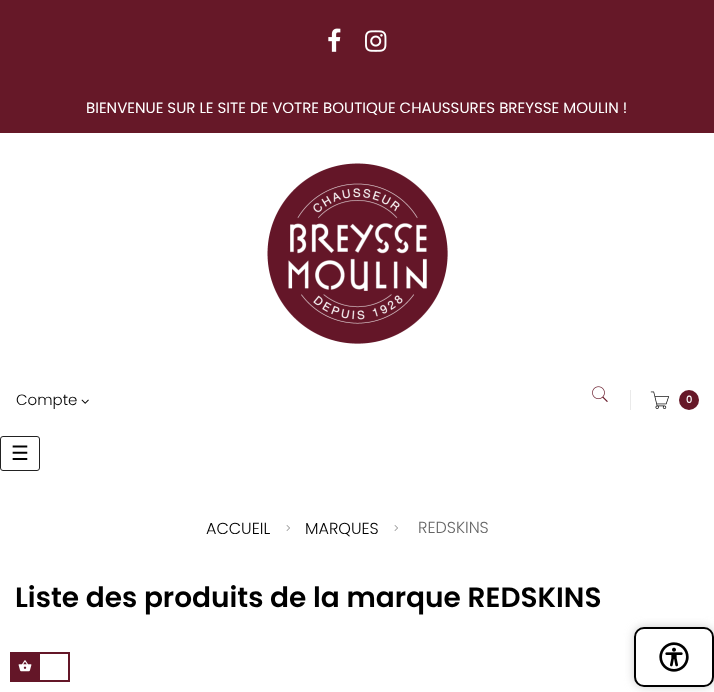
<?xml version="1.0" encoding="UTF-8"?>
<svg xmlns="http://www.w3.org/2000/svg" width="714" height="692">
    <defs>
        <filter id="blur1" x="-50%" y="-200%" width="200%" height="500%"><feGaussianBlur stdDeviation="5"/></filter>
    </defs>
    <rect width="100%" height="100%" fill="#FFFFFF"/>
    <rect x="0" y="0" width="714" height="133" fill="#661828"/>
    <image x="328" y="28" width="13" height="24" href="img_01.png"/>
    <image x="365" y="30" width="22" height="22" href="img_02.png"/>
    <text x="86" y="113" font-family="Poppins" font-size="15" fill="#FFFFFF">BIENVENUE SUR LE SITE DE VOTRE BOUTIQUE CHAUSSURES BREYSSE MOULIN !</text>
    <image x="267" y="163" width="181" height="181" href="img_03.png"/>
    <text x="16" y="405" font-family="Poppins" font-size="15" font-weight="300" fill="#000000">Compte</text>
    <image x="81" y="399" width="8" height="5" href="img_04.png"/>
    <image x="592" y="386" width="16" height="16" href="img_05.png"/>
    <rect x="630" y="390" width="1" height="20" fill="#EAEAEA"/>
    <image x="650" y="391" width="20" height="18" href="img_06.png"/>
    <circle cx="689" cy="400" r="10" fill="#661828"/>
    <text x="686" y="403" font-family="Poppins" font-size="10" font-weight="500" fill="#FFFFFF">0</text>
    <rect x="0.5" y="436.5" width="39" height="34" rx="2.5" fill="none" stroke="#222222"/>
    <text x="11" y="460" font-family="DejaVu Sans" font-size="20" fill="#000000">☰</text>
    <text x="206" y="534" font-family="Poppins" font-size="16" font-weight="300" fill="#000000">ACCUEIL</text>
    <image x="286" y="525" width="4" height="6" href="img_07.png"/>
    <text x="305" y="534" font-family="Poppins" font-size="16" font-weight="300" fill="#000000">MARQUES</text>
    <image x="394" y="525" width="4" height="6" href="img_07.png"/>
    <text x="418" y="533" font-family="Poppins" font-size="16" font-weight="300" fill="#666666">REDSKINS</text>
    <text x="15" y="607" font-family="Poppins" font-size="28" font-weight="600" fill="#000000">Liste des produits de la marque REDSKINS</text>
    <rect x="10" y="652" width="30" height="30" fill="#641628"/>
    <image x="18" y="660" width="14" height="12" href="img_08.png"/>
    <rect x="40" y="652" width="30" height="2" fill="#641628"/>
    <rect x="68" y="652" width="2" height="30" fill="#641628"/>
    <rect x="40" y="680" width="30" height="2" fill="#641628"/>
    <rect x="634" y="627" width="80" height="60" rx="10" fill="#CCCCCC" filter="url(#blur1)"/>
    <rect x="635" y="628" width="78" height="58" rx="9" fill="#FFFFFF" stroke="#000000" stroke-width="2"/>
    <image x="659" y="642" width="30" height="30" href="img_09.png"/>
</svg>
